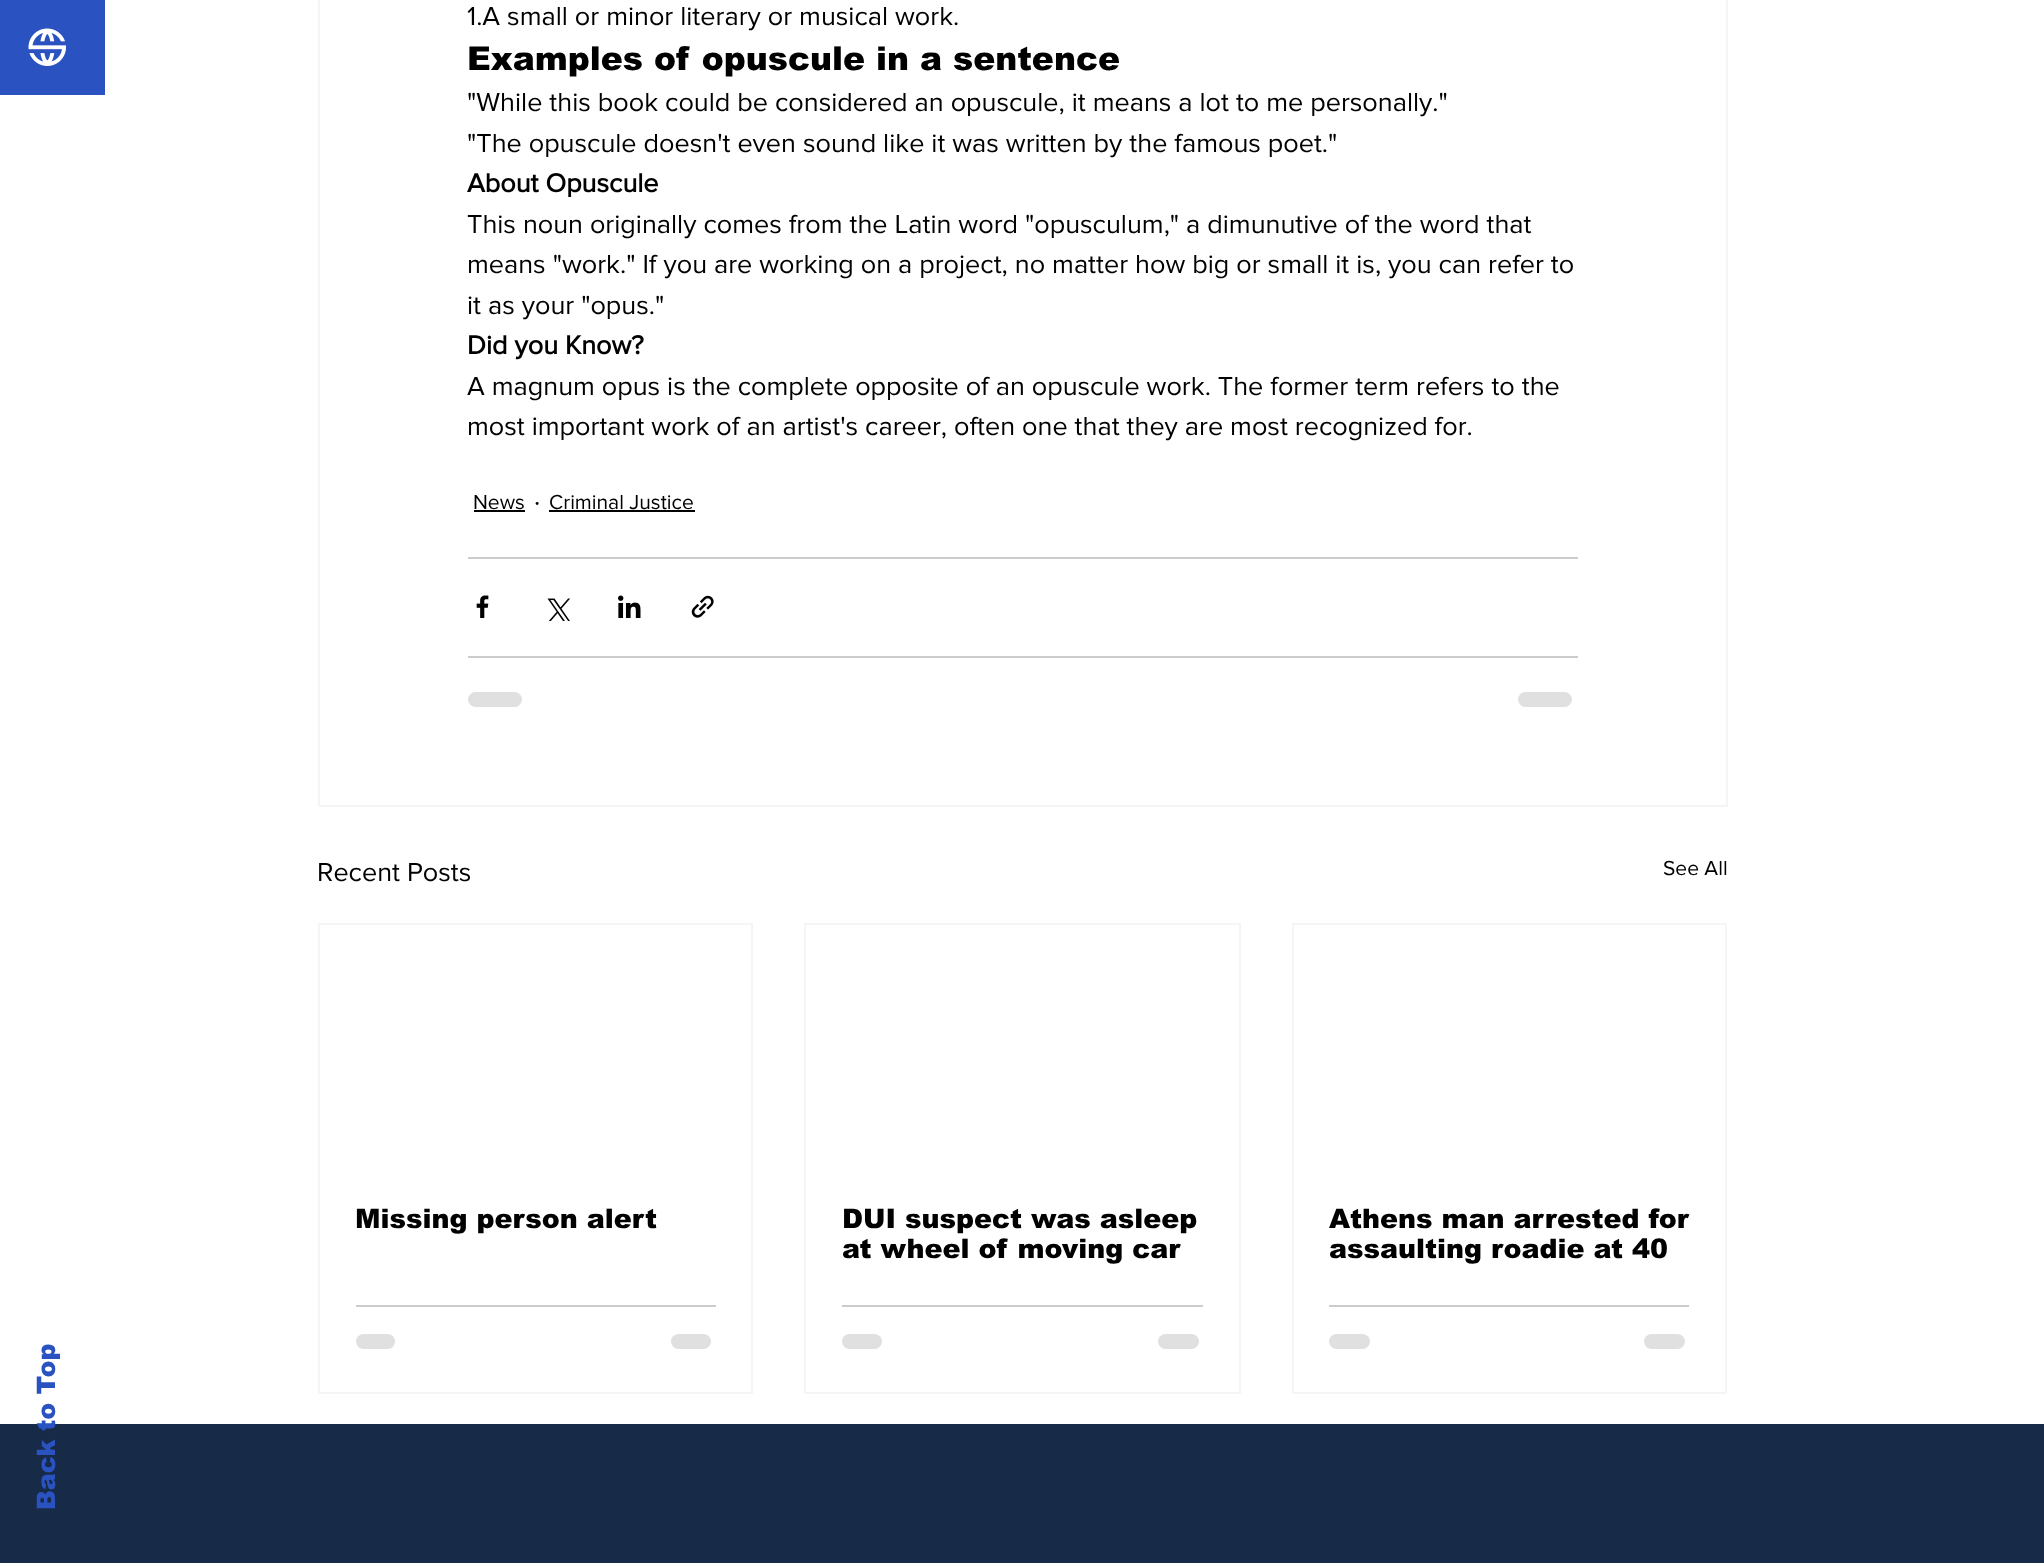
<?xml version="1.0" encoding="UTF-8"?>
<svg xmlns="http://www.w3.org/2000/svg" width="2044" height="1563">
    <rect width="100%" height="100%" fill="#FFFFFF"/>
    <rect x="0" y="0" width="105" height="95" fill="#2A53C1"/>
    <image x="28" y="28" width="38" height="38" href="img_01.png"/>
    <rect x="319" y="-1" width="1408" height="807" fill="none" stroke="#F5F5F5" stroke-width="2"/>
    <text x="467" y="25" font-family="'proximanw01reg'" font-size="27" fill="#000000">1.A small or minor literary or musical work.</text>
    <text x="467" y="70" font-family="arial" font-size="33" font-weight="900" fill="#000000">Examples of opuscule in a sentence</text>
    <text font-family="'proximanw01reg'" font-size="27" fill="#000000">
        <tspan x="467" y="111">"While this book could be considered an opuscule, it means a lot to me personally."</tspan>
        <tspan x="467" y="152">"The opuscule doesn't even sound like it was written by the famous poet."</tspan>
    </text>
    <text x="467" y="192" font-family="'proximanw01reg'" font-size="27" font-weight="700" fill="#000000">About Opuscule</text>
    <text font-family="'proximanw01reg'" font-size="27" fill="#000000">
        <tspan x="467" y="233">This noun originally comes from the Latin word "opusculum," a dimunutive of the word that</tspan>
        <tspan x="467" y="273">means "work." If you are working on a project, no matter how big or small it is, you can refer to</tspan>
        <tspan x="467" y="314">it as your "opus."</tspan>
    </text>
    <text x="467" y="354" font-family="'proximanw01reg'" font-size="27" font-weight="700" fill="#000000">Did you Know?</text>
    <text font-family="'proximanw01reg'" font-size="27" fill="#000000">
        <tspan x="467" y="395">A magnum opus is the complete opposite of an opuscule work. The former term refers to the</tspan>
        <tspan x="467" y="435">most important work of an artist's career, often one that they are most recognized for.</tspan>
    </text>
    <text x="473" y="509" font-family="'proximanw01reg'" font-size="21" fill="#000000">News</text>
    <rect x="474" y="510" width="51" height="2" fill="#000000"/>
    <text x="534" y="510" font-family="'proximanw01reg'" font-size="27" fill="#000000">·</text>
    <text x="549" y="509" font-family="'proximanw01reg'" font-size="21" fill="#000000">Criminal Justice</text>
    <rect x="549" y="510" width="146" height="2" fill="#000000"/>
    <rect x="468" y="557" width="1110" height="2" fill="#CCCCCC"/>
    <image x="476" y="595" width="13" height="23" href="img_02.png"/>
    <image x="547" y="598" width="23" height="23" href="img_03.png"/>
    <image x="618" y="595" width="23" height="23" href="img_04.png"/>
    <image x="691" y="595" width="23" height="23" href="img_05.png"/>
    <rect x="468" y="656" width="1110" height="2" fill="#CCCCCC"/>
    <rect x="468" y="692" width="54" height="15" rx="7.5" fill="#E0E0E0"/>
    <rect x="1518" y="692" width="54" height="15" rx="7.5" fill="#E0E0E0"/>
    <text x="317" y="881" font-family="'proximanw01reg'" font-size="27" fill="#000000">Recent Posts</text>
    <text x="1663" y="875" font-family="'proximanw01reg'" font-size="21" fill="#000000">See All</text>
    <rect x="319" y="924" width="433" height="469" fill="none" stroke="#F5F5F5" stroke-width="2"/>
    <text x="355" y="1228" font-family="arial" font-size="27" font-weight="900" fill="#000000">Missing person alert</text>
    <rect x="356" y="1305" width="360" height="2" fill="#CCCCCC"/>
    <rect x="356" y="1334" width="39" height="15" rx="7.5" fill="#E0E0E0"/>
    <rect x="671" y="1334" width="40" height="15" rx="7.5" fill="#E0E0E0"/>
    <rect x="805" y="924" width="435" height="469" fill="none" stroke="#F5F5F5" stroke-width="2"/>
    <text font-family="arial" font-size="27" font-weight="900" fill="#000000">
        <tspan x="842" y="1228">DUI suspect was asleep</tspan>
        <tspan x="842" y="1258">at wheel of moving car</tspan>
    </text>
    <rect x="842" y="1305" width="361" height="2" fill="#CCCCCC"/>
    <rect x="842" y="1334" width="40" height="15" rx="7.5" fill="#E0E0E0"/>
    <rect x="1158" y="1334" width="41" height="15" rx="7.5" fill="#E0E0E0"/>
    <rect x="1293" y="924" width="433" height="469" fill="none" stroke="#F5F5F5" stroke-width="2"/>
    <text font-family="arial" font-size="27" font-weight="900" fill="#000000">
        <tspan x="1329" y="1228">Athens man arrested for</tspan>
        <tspan x="1329" y="1258">assaulting roadie at 40</tspan>
    </text>
    <rect x="1329" y="1305" width="360" height="2" fill="#CCCCCC"/>
    <rect x="1329" y="1334" width="41" height="15" rx="7.5" fill="#E0E0E0"/>
    <rect x="1644" y="1334" width="41" height="15" rx="7.5" fill="#E0E0E0"/>
    <rect x="0" y="1424" width="2044" height="139" fill="#172A47"/>
    <text x="55" y="1510" transform="rotate(-90 55 1510)" font-family="arial" font-size="25.5" font-weight="900" fill="#2A53C1">Back to Top</text>
</svg>
